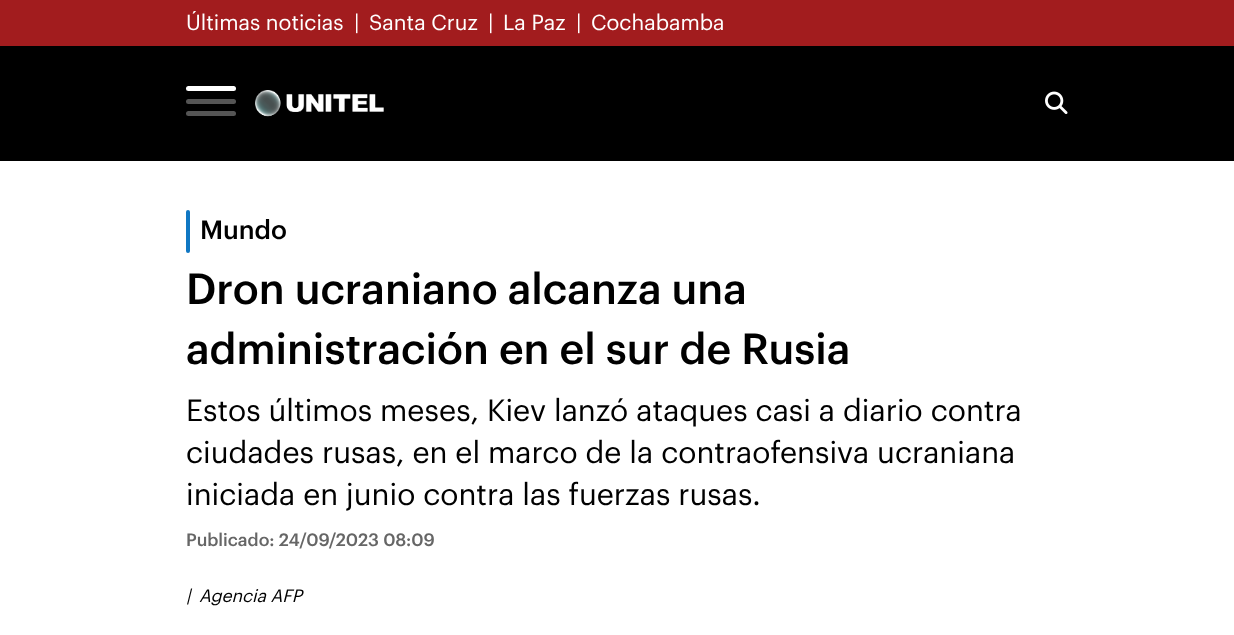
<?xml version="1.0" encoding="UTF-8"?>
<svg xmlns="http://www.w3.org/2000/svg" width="1234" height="635">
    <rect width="100%" height="100%" fill="#FFFFFF"/>
    <rect x="0" y="0" width="1234" height="46" fill="#A21C1E"/>
    <text x="186" y="30" font-family="Graphik" font-size="21.25" fill="#FFFFFF">Últimas noticias</text>
    <text x="354" y="30" font-family="Graphik" font-size="21.25" fill="#FFFFFF">|</text>
    <text x="369" y="30" font-family="Graphik" font-size="21.25" fill="#FFFFFF">Santa Cruz</text>
    <text x="488" y="30" font-family="Graphik" font-size="21.25" fill="#FFFFFF">|</text>
    <text x="503" y="30" font-family="Graphik" font-size="21.25" fill="#FFFFFF">La Paz</text>
    <text x="576" y="30" font-family="Graphik" font-size="21.25" fill="#FFFFFF">|</text>
    <text x="591" y="30" font-family="Graphik" font-size="21.25" fill="#FFFFFF">Cochabamba</text>
    <rect x="0" y="46" width="1234" height="115" fill="#000000"/>
    <rect x="186" y="86" width="50" height="5" rx="2.5" fill="#FFFFFF"/>
    <rect x="186" y="99" width="50" height="5" rx="2.5" fill="#555555"/>
    <rect x="186" y="111" width="50" height="5" rx="2.5" fill="#555555"/>
    <image x="255" y="90" width="129" height="27" href="img_01.png"/>
    <image x="1045" y="91" width="23" height="23" href="img_02.png"/>
    <rect x="186" y="210" width="4" height="43" rx="2" fill="#1077C3"/>
    <text x="200" y="239" font-family="Graphik" font-size="26" font-weight="500" fill="#000000">Mundo</text>
    <text font-family="Graphik" font-size="42.5" font-weight="500" fill="#000000">
        <tspan x="186" y="304">Dron ucraniano alcanza una</tspan>
        <tspan x="186" y="364">administración en el sur de Rusia</tspan>
    </text>
    <text font-family="Graphik" font-size="30" fill="#000000">
        <tspan x="186" y="421">Estos últimos meses, Kiev lanzó ataques casi a diario contra</tspan>
        <tspan x="186" y="463">ciudades rusas, en el marco de la contraofensiva ucraniana</tspan>
        <tspan x="186" y="505">iniciada en junio contra las fuerzas rusas.</tspan>
    </text>
    <text x="186" y="546" font-family="Graphik" font-size="17.5" font-weight="500" fill="#666666">Publicado: 24/09/2023 08:09</text>
    <text x="186" y="602" font-family="Graphik" font-size="17.5" font-style="italic" fill="#000000">|</text>
    <text x="199" y="602" font-family="Graphik" font-size="17.5" font-style="italic" fill="#000000">Agencia AFP</text>
</svg>
